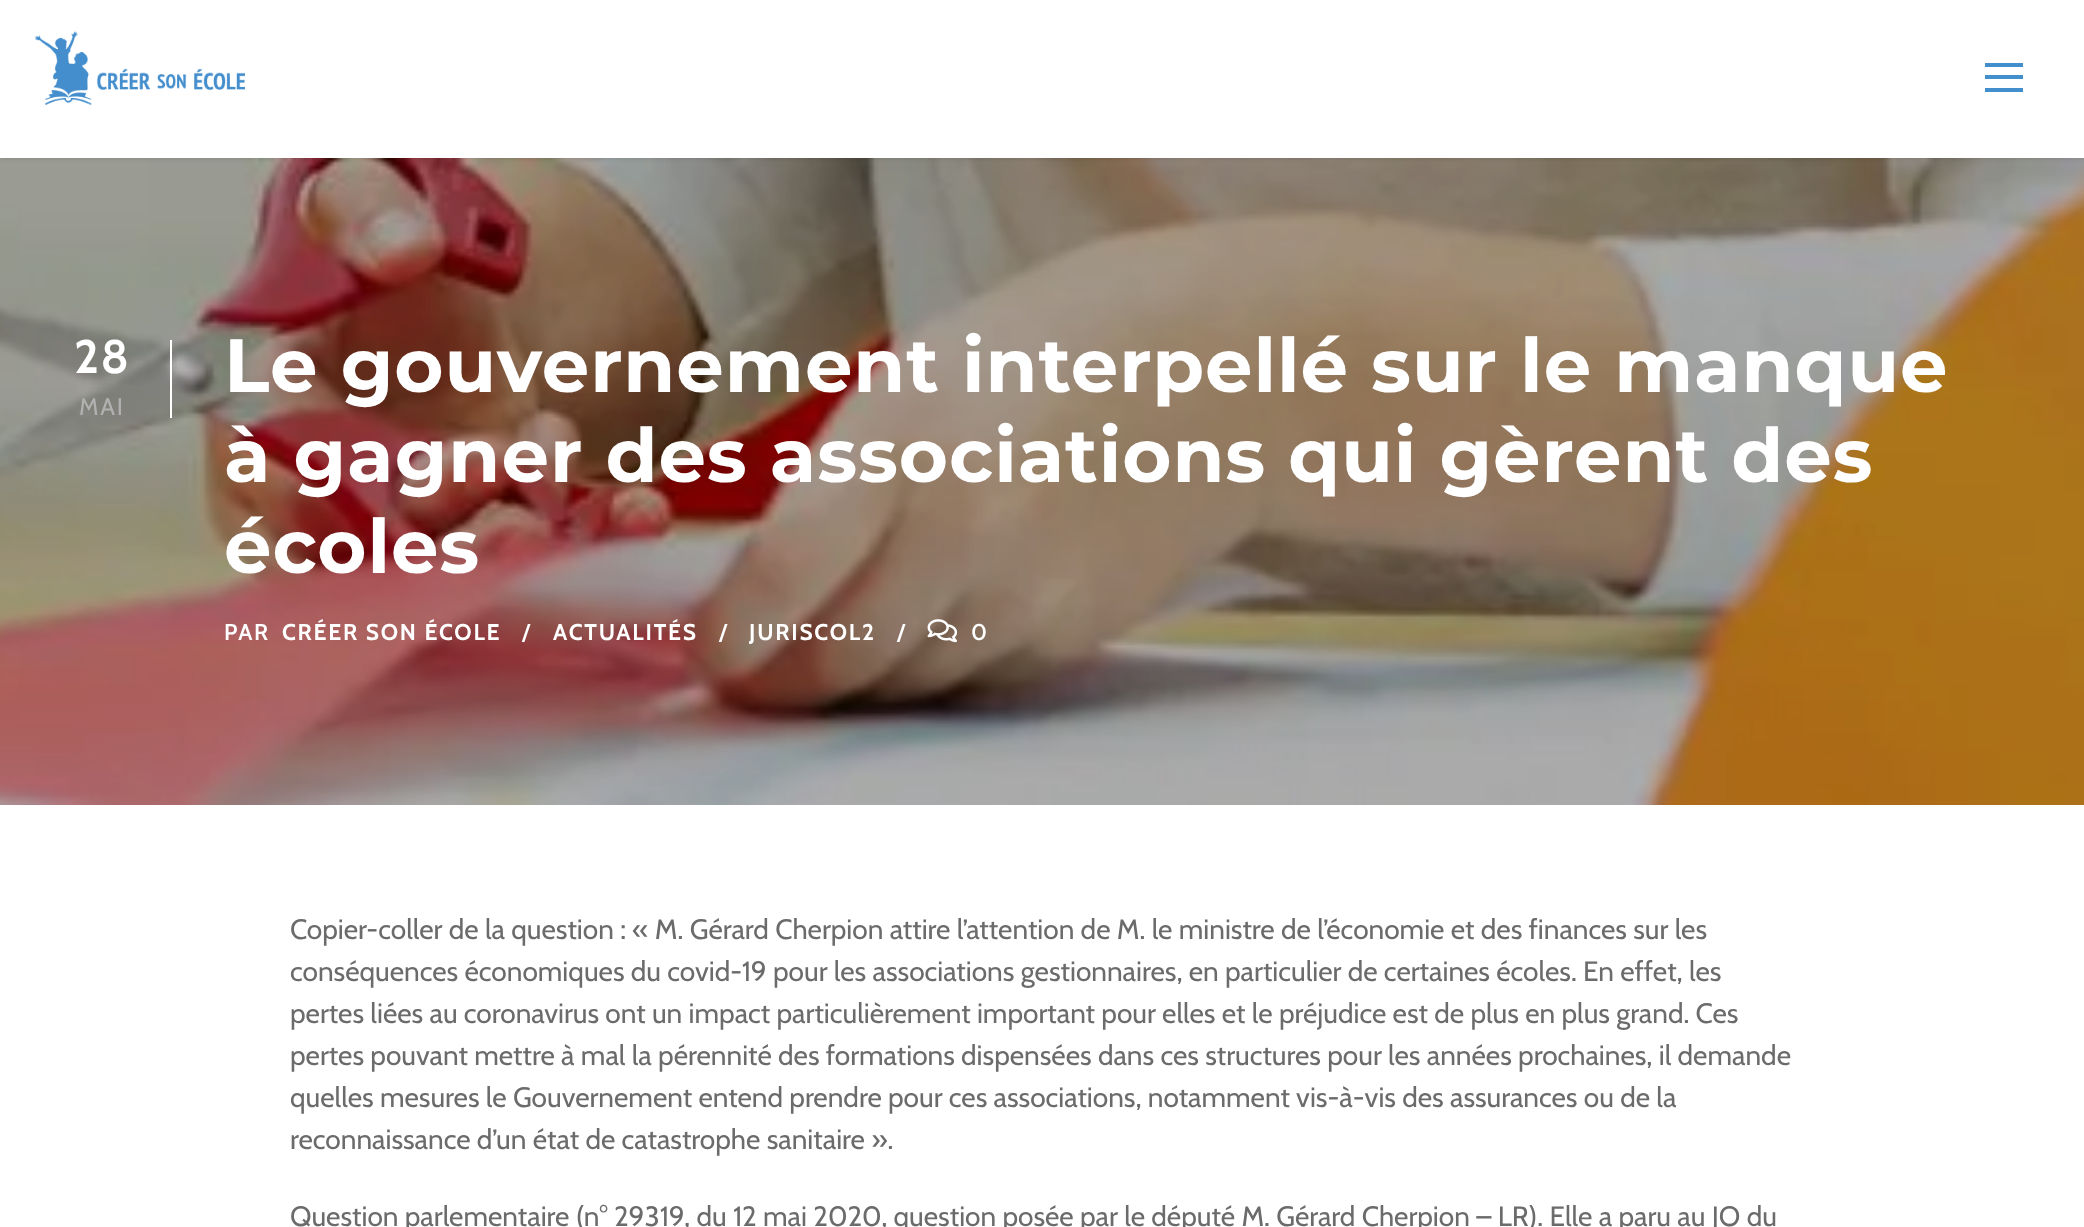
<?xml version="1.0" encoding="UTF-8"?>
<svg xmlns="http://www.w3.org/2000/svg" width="2084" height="1227">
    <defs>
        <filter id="blur1" x="-50%" y="-200%" width="200%" height="500%"><feGaussianBlur stdDeviation="2"/></filter>
    </defs>
    <rect width="100%" height="100%" fill="#FFFFFF"/>
    <image x="0" y="158" width="2084" height="647" href="img_02.png"/>
    <rect x="0" y="2" width="2084" height="157" fill="#000000" fill-opacity="0.1" filter="url(#blur1)"/>
    <rect x="0" y="0" width="2084" height="158" fill="#FFFFFF"/>
    <image x="35" y="31" width="210" height="74" href="img_01.png"/>
    <rect x="1985" y="63" width="38" height="4" fill="#438ECD"/>
    <rect x="1985" y="75" width="38" height="4" fill="#438ECD"/>
    <rect x="1985" y="88" width="38" height="4" fill="#438ECD"/>
    <rect x="170" y="340" width="2" height="78" fill="#FFFFFF"/>
    <text x="74" y="373" font-family="Cabin" font-size="47" font-weight="700" letter-spacing="1.75" fill="#FFFFFF">28</text>
    <text x="79" y="415" font-family="Cabin" font-size="24" letter-spacing="1.75" fill="#B1B1B1">MAI</text>
    <text font-family="Montserrat" font-size="75.25" font-weight="700" letter-spacing="0.9" fill="#FFFFFF">
        <tspan x="224" y="392">Le gouvernement interpellé sur le manque</tspan>
        <tspan x="224" y="482">à gagner des associations qui gèrent des</tspan>
        <tspan x="224" y="573">écoles</tspan>
    </text>
    <text x="224" y="640" font-family="Cabin" font-size="22.75" font-weight="600" letter-spacing="1.75" fill="#FFFFFF">PAR</text>
    <text x="282" y="640" font-family="Cabin" font-size="22.75" font-weight="700" letter-spacing="1.75" fill="#FFFFFF">CRÉER SON ÉCOLE</text>
    <text x="522" y="640" font-family="Cabin" font-size="22.75" font-weight="600" letter-spacing="1.75" fill="#FFFFFF">/</text>
    <text x="553" y="640" font-family="Cabin" font-size="22.75" font-weight="700" letter-spacing="1.75" fill="#FFFFFF">ACTUALITÉS</text>
    <text x="719" y="640" font-family="Cabin" font-size="22.75" font-weight="600" letter-spacing="1.75" fill="#FFFFFF">/</text>
    <text x="749" y="640" font-family="Cabin" font-size="22.75" font-weight="700" letter-spacing="1.75" fill="#FFFFFF">JURISCOL2</text>
    <text x="897" y="640" font-family="Cabin" font-size="22.75" font-weight="600" letter-spacing="1.75" fill="#FFFFFF">/</text>
    <image x="927" y="619" width="31" height="24" href="img_03.png"/>
    <text x="971" y="640" font-family="Cabin" font-size="22.75" font-weight="600" letter-spacing="1.75" fill="#FFFFFF">0</text>
    <text font-family="Cabin" font-size="28" fill="#6B6B6B">
        <tspan x="290" y="939">Copier-coller de la question : « M. Gérard Cherpion attire l’attention de M. le ministre de l’économie et des finances sur les</tspan>
        <tspan x="290" y="981">conséquences économiques du covid-19 pour les associations gestionnaires, en particulier de certaines écoles. En effet, les</tspan>
        <tspan x="290" y="1023">pertes liées au coronavirus ont un impact particulièrement important pour elles et le préjudice est de plus en plus grand. Ces</tspan>
        <tspan x="290" y="1065">pertes pouvant mettre à mal la pérennité des formations dispensées dans ces structures pour les années prochaines, il demande</tspan>
        <tspan x="290" y="1107">quelles mesures le Gouvernement entend prendre pour ces associations, notamment vis-à-vis des assurances ou de la</tspan>
        <tspan x="290" y="1149">reconnaissance d’un état de catastrophe sanitaire ».</tspan>
    </text>
    <text x="290" y="1226" font-family="Cabin" font-size="28" fill="#6B6B6B">Question parlementaire (n° 29319, du 12 mai 2020, question posée par le député M. Gérard Cherpion – LR). Elle a paru au JO du</text>
</svg>
